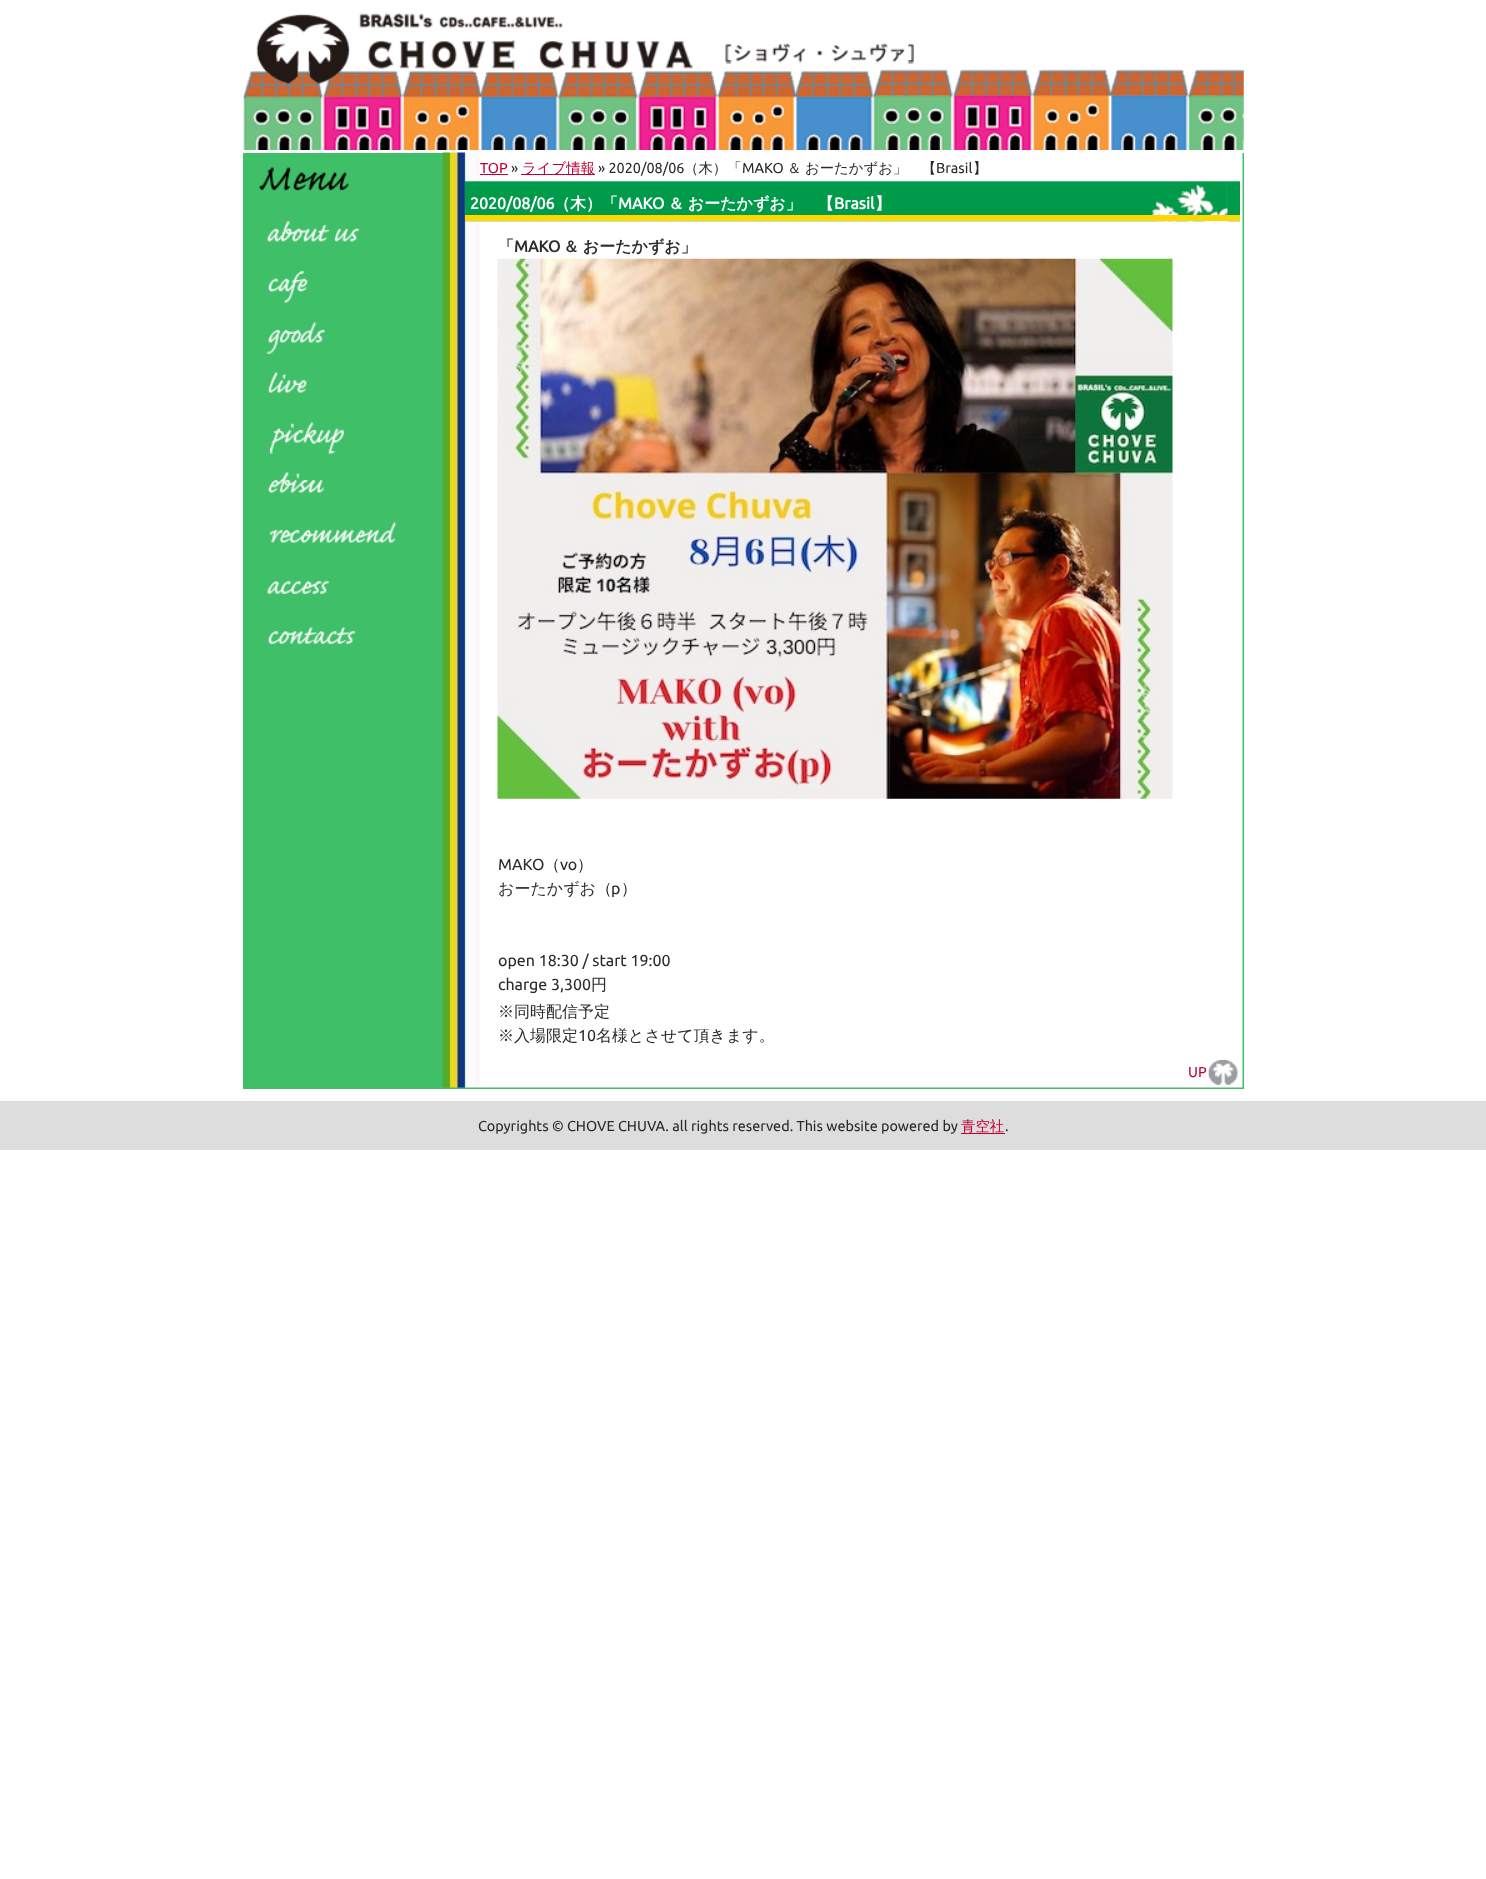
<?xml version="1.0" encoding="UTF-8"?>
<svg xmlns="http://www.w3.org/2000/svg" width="1486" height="1879">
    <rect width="100%" height="100%" fill="#FFFFFF"/>
    <image x="243" y="13" width="1001" height="137" href="img_01.png"/>
    <rect x="243" y="153" width="1001" height="936" fill="#3FBF67"/>
    <image x="258" y="167" width="91" height="24" href="img_02.png"/>
    <image x="267" y="221" width="93" height="21" href="img_03.png"/>
    <image x="268" y="271" width="40" height="32" href="img_04.png"/>
    <image x="267" y="322" width="59" height="32" href="img_05.png"/>
    <image x="268" y="372" width="39" height="21" href="img_06.png"/>
    <image x="269" y="422" width="75" height="32" href="img_07.png"/>
    <image x="268" y="472" width="56" height="21" href="img_08.png"/>
    <image x="269" y="522" width="128" height="21" href="img_09.png"/>
    <image x="267" y="581" width="63" height="13" href="img_10.png"/>
    <image x="268" y="627" width="88" height="17" href="img_11.png"/>
    <image x="442" y="152" width="801" height="936" href="img_12.png"/>
    <text x="480" y="173" font-family="Ubuntu" font-size="14.4" fill="#BE0032">TOP</text>
    <rect x="480" y="174" width="28" height="1" fill="#BE0032"/>
    <text x="511" y="173" font-family="Ubuntu" font-size="14.4" fill="#2A2A2A">»</text>
    <rect x="521" y="174" width="74" height="1" fill="#BE0032"/>
    <text x="522" y="173" font-family="WenQuanYi Zen Hei" font-size="14.4" font-weight="500" fill="#BE0032">ライブ情報</text>
    <text x="598" y="173" font-family="Ubuntu" font-size="14.4" fill="#2A2A2A">» 2020/08/06</text>
    <text x="684" y="173" font-family="WenQuanYi Zen Hei" font-size="14.4" font-weight="500" fill="#2A2A2A">（木）「</text>
    <text x="742" y="173" font-family="Ubuntu" font-size="14.4" fill="#2A2A2A">MAKO</text>
    <text x="787" y="173" font-family="WenQuanYi Zen Hei" font-size="14.4" font-weight="500" fill="#2A2A2A">＆</text>
    <text x="805" y="173" font-family="WenQuanYi Zen Hei" font-size="14.4" font-weight="500" fill="#2A2A2A">おーたかずお」　【</text>
    <text x="936" y="173" font-family="Ubuntu" font-size="14.4" fill="#2A2A2A">Brasil</text>
    <text x="973" y="173" font-family="WenQuanYi Zen Hei" font-size="14.4" font-weight="500" fill="#2A2A2A">】</text>
    <image x="465" y="181" width="775" height="41" href="img_13.png"/>
    <rect x="465" y="215" width="775" height="6" fill="#FFD700"/>
    <text x="470" y="209" font-family="Ubuntu" font-size="16" font-weight="700" fill="#FFFFFF">2020/08/06</text>
    <text x="554" y="209" font-family="WenQuanYi Zen Hei" font-size="16" font-weight="700" fill="#FFFFFF">（木）「</text>
    <text x="618" y="209" font-family="Ubuntu" font-size="16" font-weight="700" fill="#FFFFFF">MAKO</text>
    <text x="668" y="209" word-spacing="-1" font-family="WenQuanYi Zen Hei" font-size="16" font-weight="700" fill="#FFFFFF">＆ おーたかずお」　【</text>
    <text x="834" y="209" font-family="Ubuntu" font-size="16" font-weight="700" fill="#FFFFFF">Brasil</text>
    <text x="875" y="209" font-family="WenQuanYi Zen Hei" font-size="16" font-weight="700" fill="#FFFFFF">】</text>
    <text x="498" y="252" font-family="WenQuanYi Zen Hei" font-size="16" font-weight="700" fill="#2A2A2A">「</text>
    <text x="514" y="252" font-family="Ubuntu" font-size="16" font-weight="700" fill="#2A2A2A">MAKO</text>
    <text x="563" y="252" word-spacing="-1" font-family="WenQuanYi Zen Hei" font-size="16" font-weight="700" fill="#2A2A2A">＆ おーたかずお」</text>
    <image x="497" y="258" width="676" height="541" href="img_14.png"/>
    <text x="498" y="870" font-family="Ubuntu" font-size="16" fill="#2A2A2A">MAKO</text>
    <text x="544" y="870" font-family="WenQuanYi Zen Hei" font-size="16" font-weight="500" fill="#2A2A2A">（</text>
    <text x="560" y="870" font-family="Ubuntu" font-size="16" fill="#2A2A2A">vo</text>
    <text x="577" y="870" font-family="WenQuanYi Zen Hei" font-size="16" font-weight="500" fill="#2A2A2A">）</text>
    <text x="498" y="894" font-family="WenQuanYi Zen Hei" font-size="16" font-weight="500" fill="#2A2A2A">おーたかずお（</text>
    <text x="611" y="894" font-family="Ubuntu" font-size="16" fill="#2A2A2A">p</text>
    <text x="621" y="894" font-family="WenQuanYi Zen Hei" font-size="16" font-weight="500" fill="#2A2A2A">）</text>
    <text font-family="Ubuntu" font-size="16" fill="#2A2A2A">
        <tspan x="498" y="966">open 18:30 / start 19:00</tspan>
        <tspan x="498" y="990">charge 3,300</tspan>
    </text>
    <text x="591" y="990" font-family="WenQuanYi Zen Hei" font-size="16" font-weight="500" fill="#2A2A2A">円</text>
    <text font-family="WenQuanYi Zen Hei" font-size="16" font-weight="500" fill="#2A2A2A">
        <tspan x="498" y="1017">※同時配信予定</tspan>
        <tspan x="498" y="1041">※入場限定</tspan>
    </text>
    <text x="578" y="1041" font-family="Ubuntu" font-size="16" fill="#2A2A2A">10</text>
    <text x="596" y="1041" font-family="WenQuanYi Zen Hei" font-size="16" font-weight="500" fill="#2A2A2A">名様とさせて頂きます。</text>
    <image x="1208" y="1060" width="30" height="25" href="img_15.png"/>
    <text x="1188" y="1077" font-family="Ubuntu" font-size="14.4" fill="#BE0032">UP</text>
    <rect x="0" y="1101" width="1486" height="49" fill="#DDDDDD"/>
    <text x="478" y="1131" font-family="Ubuntu" font-size="14.4" fill="#2A2A2A">Copyrights © CHOVE CHUVA. all rights reserved. This website powered by</text>
    <text x="961" y="1131" font-family="WenQuanYi Zen Hei" font-size="14.4" font-weight="500" fill="#BE0032">青空社</text>
    <rect x="961" y="1133" width="44" height="1" fill="#BE0032"/>
    <text x="1005" y="1131" font-family="Ubuntu" font-size="14.4" fill="#2A2A2A">.</text>
</svg>
